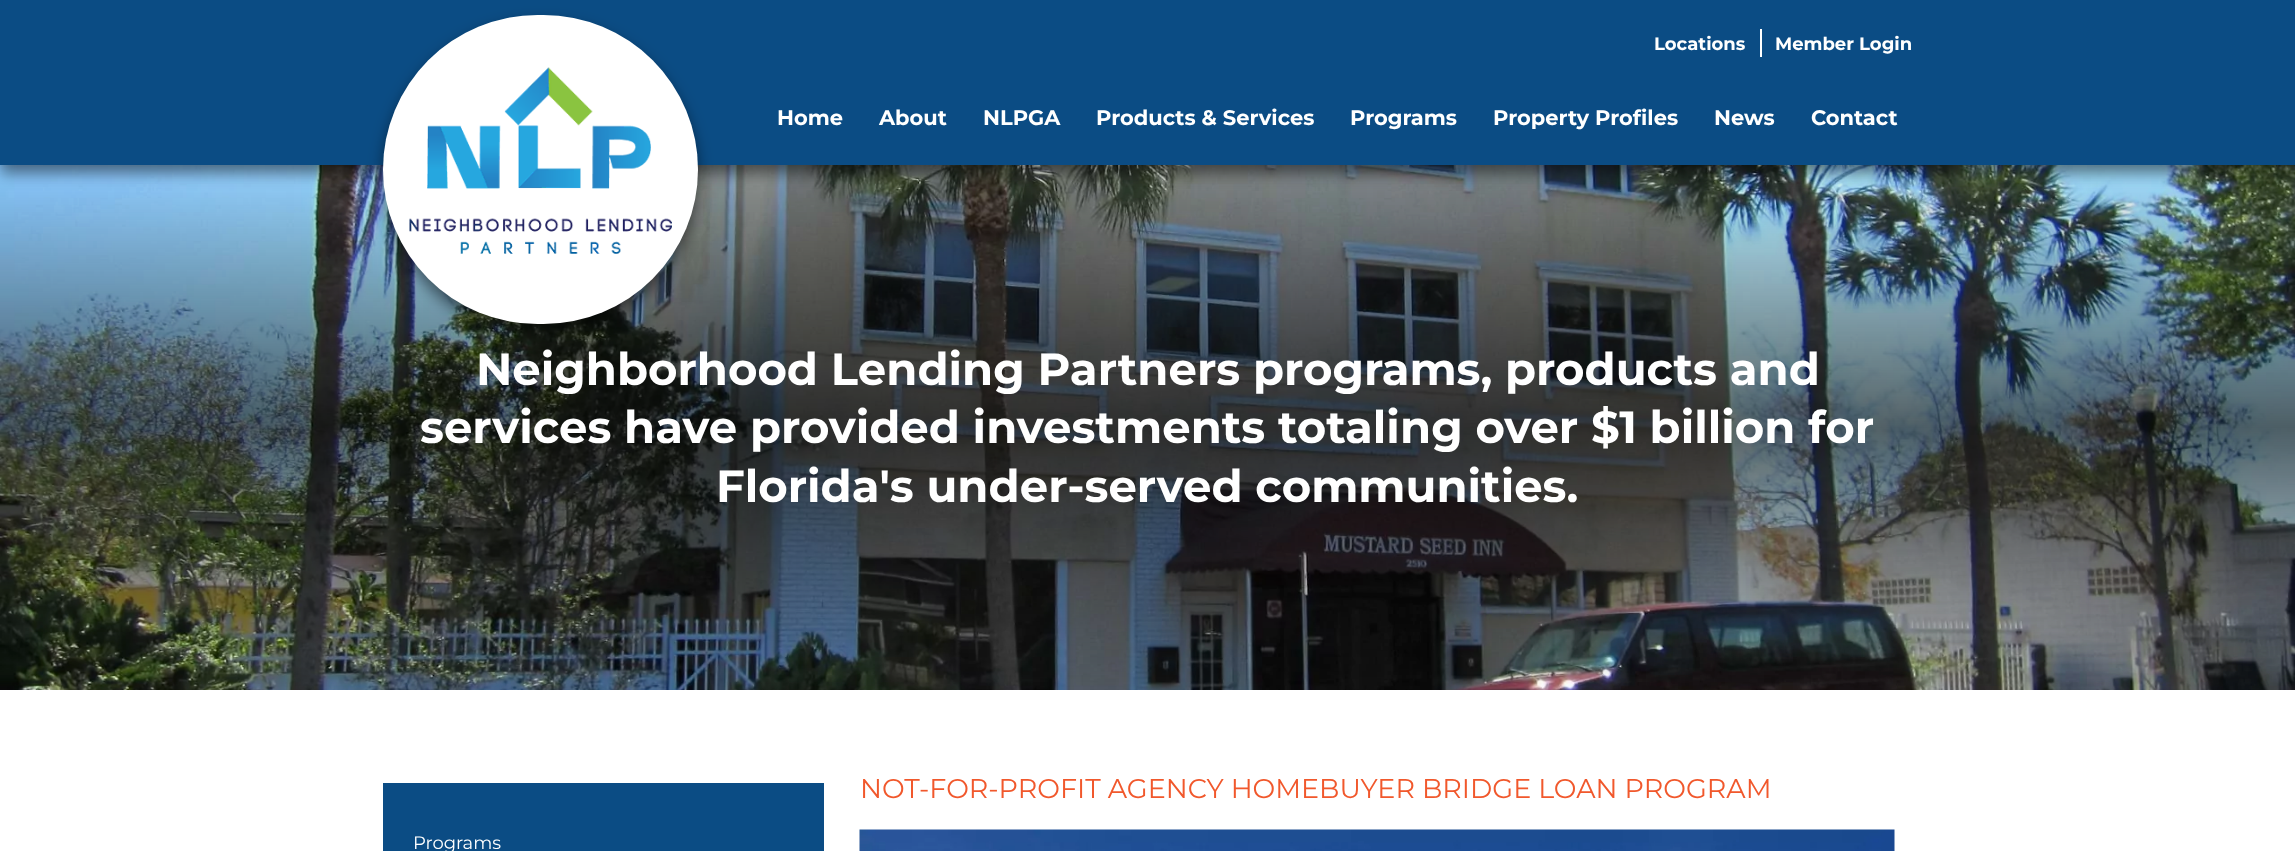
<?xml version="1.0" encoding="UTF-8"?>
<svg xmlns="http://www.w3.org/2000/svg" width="2295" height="851">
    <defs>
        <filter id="blur1" x="-50%" y="-200%" width="200%" height="500%"><feGaussianBlur stdDeviation="7.5"/></filter>
    </defs>
    <rect width="100%" height="100%" fill="#FFFFFF"/>
    <image x="0" y="165" width="2295" height="525" href="img_02.png"/>
    <rect x="0" y="8" width="2295" height="165" fill="#000000" fill-opacity="0.5" filter="url(#blur1)"/>
    <rect x="0" y="0" width="2295" height="165" fill="#0B4C84"/>
    <rect x="383" y="23" width="315" height="309" rx="154.5" fill="#000000" fill-opacity="0.5" filter="url(#blur1)"/>
    <rect x="383" y="15" width="315" height="309" rx="154.5" fill="#FFFFFF"/>
    <image x="409" y="67" width="263" height="187" href="img_01.png"/>
    <text x="1654" y="50" font-family="Montserrat" font-size="18" font-weight="100" fill="#FFFFFF">Locations</text>
    <rect x="1760" y="29" width="2" height="28" fill="#FFFFFF"/>
    <text x="1775" y="50" font-family="Montserrat" font-size="18" font-weight="100" fill="#FFFFFF">Member Login</text>
    <text x="777" y="125" font-family="Montserrat" font-size="21" font-weight="100" fill="#FFFFFF">Home</text>
    <text x="879" y="125" font-family="Montserrat" font-size="21" font-weight="100" fill="#FFFFFF">About</text>
    <text x="983" y="125" font-family="Montserrat" font-size="21" font-weight="100" fill="#FFFFFF">NLPGA</text>
    <text x="1096" y="125" font-family="Montserrat" font-size="21" font-weight="100" fill="#FFFFFF">Products &amp; Services</text>
    <text x="1350" y="125" font-family="Montserrat" font-size="21" font-weight="100" fill="#FFFFFF">Programs</text>
    <text x="1493" y="125" font-family="Montserrat" font-size="21" font-weight="100" fill="#FFFFFF">Property Profiles</text>
    <text x="1714" y="125" font-family="Montserrat" font-size="21" font-weight="100" fill="#FFFFFF">News</text>
    <text x="1811" y="125" font-family="Montserrat" font-size="21" font-weight="100" fill="#FFFFFF">Contact</text>
    <text x="476" y="385" font-family="Montserrat" font-size="45" font-weight="100" fill="#FFFFFF">Neighborhood Lending Partners programs, products and</text>
    <text x="420" y="443" font-family="Montserrat" font-size="45" font-weight="100" fill="#FFFFFF">services have provided investments totaling over $1 billion for</text>
    <text x="716" y="502" font-family="Montserrat" font-size="45" font-weight="100" fill="#FFFFFF">Florida's under-served communities.</text>
    <text x="860" y="798" font-family="'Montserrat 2'" font-size="27" font-weight="100" fill="#F1582C">NOT-FOR-PROFIT AGENCY HOMEBUYER BRIDGE LOAN PROGRAM</text>
    <image x="859" y="829" width="1036" height="22" href="img_03.png"/>
    <rect x="383" y="783" width="441" height="68" fill="#0B4C84"/>
    <text x="413" y="849" font-family="'Montserrat 2'" font-size="18" font-weight="100" fill="#FFFFFF">Programs</text>
</svg>
